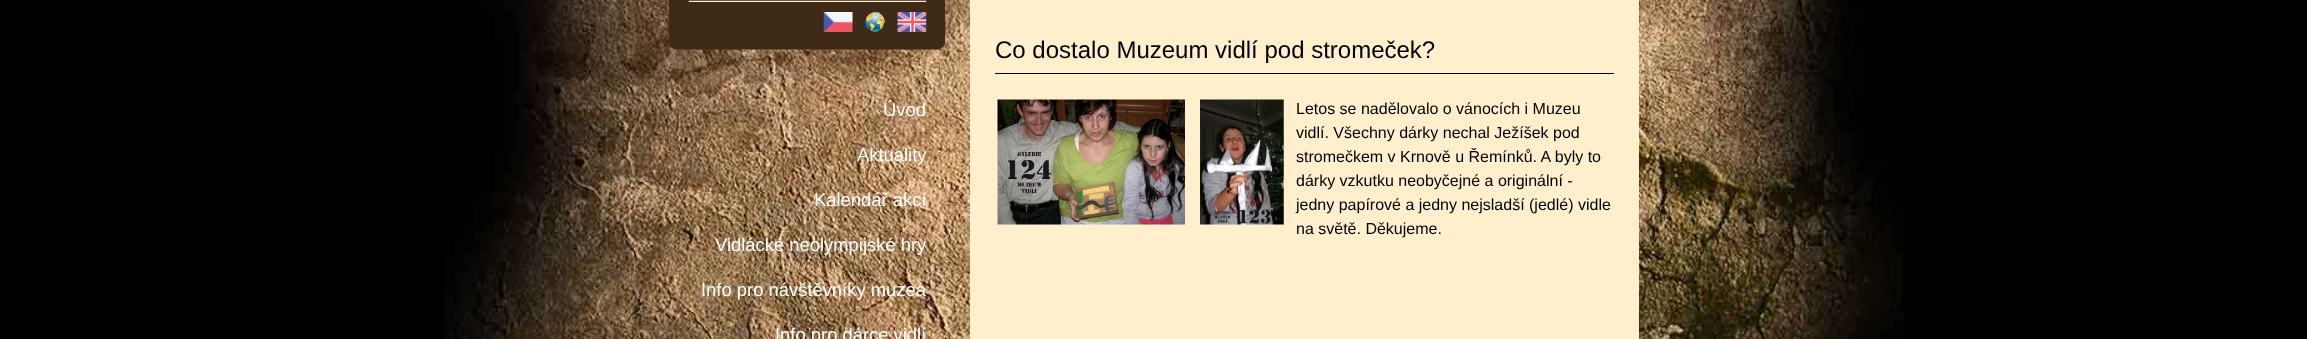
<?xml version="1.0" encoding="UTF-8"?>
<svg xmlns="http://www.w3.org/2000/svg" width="2307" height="339">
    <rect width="100%" height="100%" fill="#000000"/>
    <image x="444" y="0" width="1460" height="339" href="img_01.png"/>
    <rect x="970" y="0" width="669" height="339" fill="#FFEFCC"/>
    <image x="669" y="44" width="276" height="6" href="img_02.png"/>
    <rect x="669" y="0" width="276" height="44" fill="#3F2917"/>
    <image x="688" y="0" width="239" height="2" href="img_03.png"/>
    <image x="823" y="12" width="30" height="20" href="img_04.png"/>
    <image x="865" y="12" width="20" height="20" href="img_05.png"/>
    <image x="897" y="12" width="30" height="20" href="img_06.png"/>
    <text x="883" y="116" font-family="Liberation Sans" font-size="18.4" fill="#FFFFFF">Úvod</text>
    <text x="857" y="161" font-family="Liberation Sans" font-size="18.4" fill="#FFFFFF">Aktuality</text>
    <text x="814" y="206" font-family="Liberation Sans" font-size="18.4" fill="#FFFFFF">Kalendář akcí</text>
    <text x="715" y="251" font-family="Liberation Sans" font-size="18.4" fill="#FFFFFF">Vidlácké neolympijské hry</text>
    <text x="701" y="296" font-family="Liberation Sans" font-size="18.4" fill="#FFFFFF">Info pro návštěvníky muzea</text>
    <text x="775" y="341" font-family="Liberation Sans" font-size="18.4" fill="#FFFFFF">Info pro dárce vidlí</text>
    <rect x="995" y="73" width="619" height="1" fill="#000000"/>
    <text x="995" y="58" font-family="Liberation Sans" font-size="24" fill="#000000">Co dostalo Muzeum vidlí pod stromeček?</text>
    <image x="997" y="99" width="188" height="126" href="img_07.png"/>
    <image x="1200" y="99" width="84" height="126" href="img_08.png"/>
    <text font-family="Liberation Sans" font-size="16" fill="#000000">
        <tspan x="1296" y="114">Letos se nadělovalo o vánocích i Muzeu</tspan>
        <tspan x="1296" y="138">vidlí. Všechny dárky nechal Ježíšek pod</tspan>
        <tspan x="1296" y="162">stromečkem v Krnově u Řemínků. A byly to</tspan>
        <tspan x="1296" y="186">dárky vzkutku neobyčejné a originální -</tspan>
        <tspan x="1296" y="210">jedny papírové a jedny nejsladší (jedlé) vidle</tspan>
        <tspan x="1296" y="234">na světě. Děkujeme.</tspan>
    </text>
</svg>
